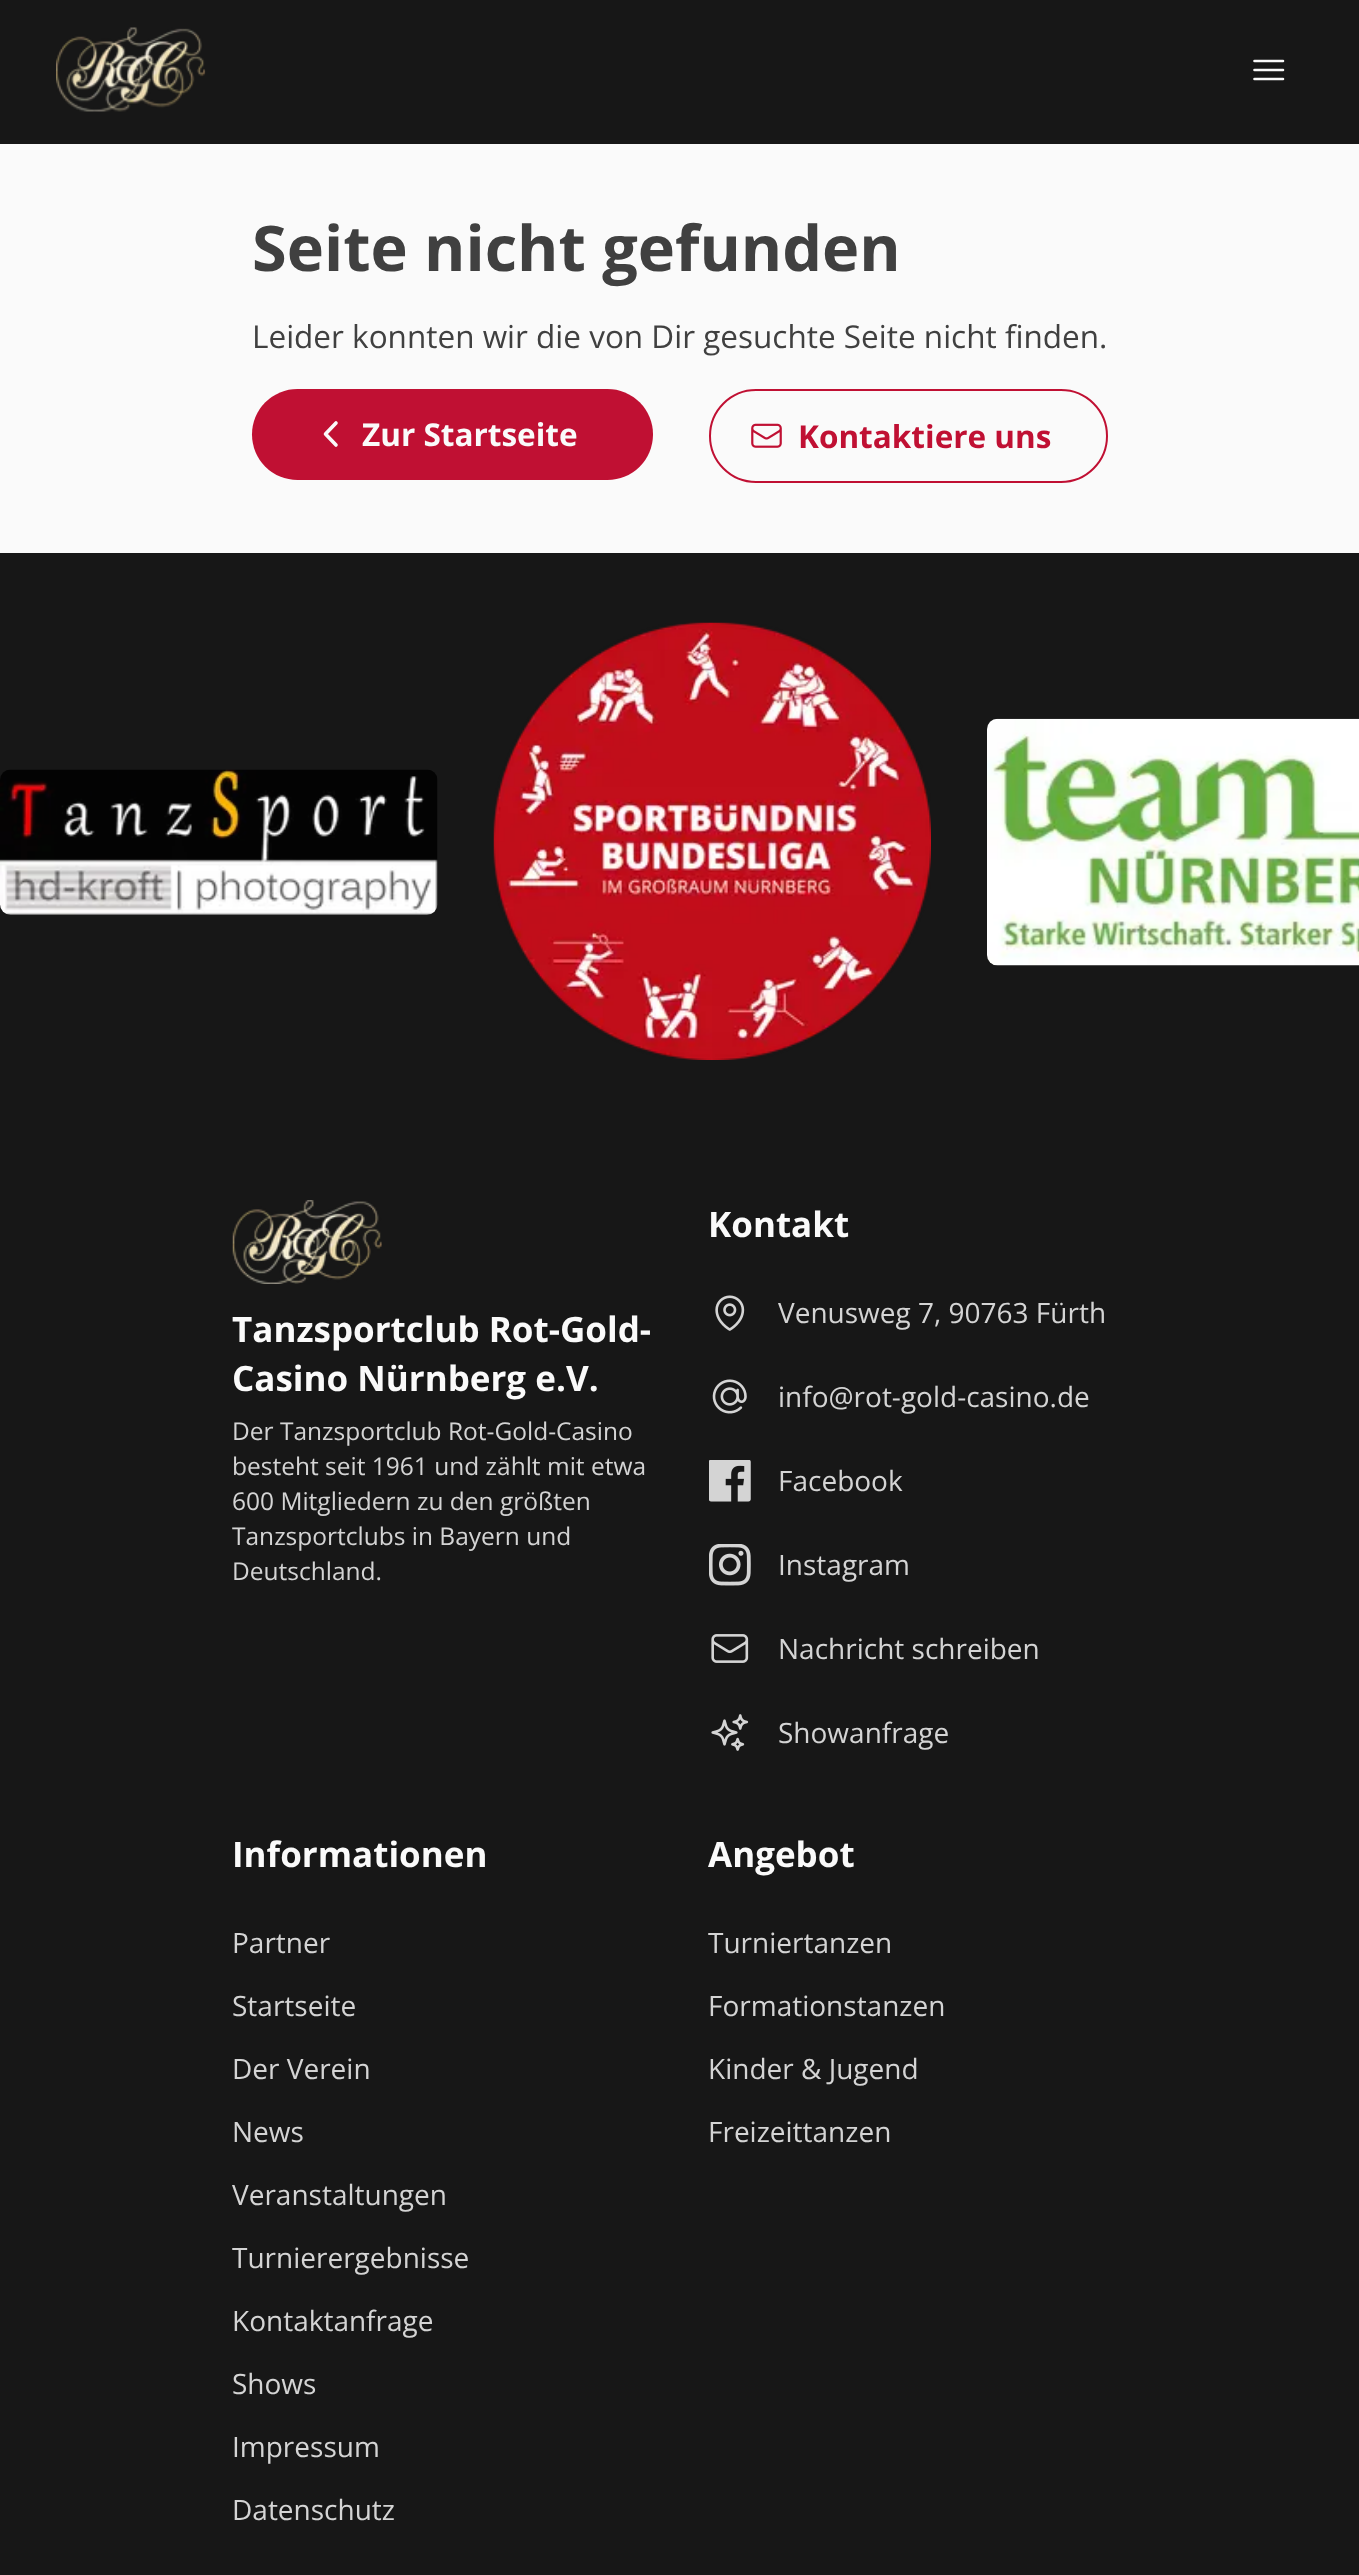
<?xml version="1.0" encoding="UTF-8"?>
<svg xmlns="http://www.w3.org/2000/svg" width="1359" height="2575">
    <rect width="100%" height="100%" fill="#FAFAFA"/>
    <rect x="0" y="0" width="1359" height="144" fill="#171717"/>
    <image x="56" y="27" width="150" height="85" href="img_01.png"/>
    <path d="M 1254.5 61 H 1283 M 1254.5 70 H 1283 M 1254.5 79 H 1283" fill="none" stroke="#FAFAFA" stroke-width="2.6" stroke-linecap="round" stroke-linejoin="round"/>
    <text x="252" y="271" font-family="Open Sans" font-size="63" font-weight="700" fill="#404040">Seite nicht gefunden</text>
    <text x="252" y="348" font-family="Open Sans" font-size="31.5" fill="#404040">Leider konnten wir die von Dir gesuchte Seite nicht finden.</text>
    <rect x="252" y="389" width="401" height="91" rx="45.5" fill="#C01033"/>
    <path d="M 336 445 L 325.5 434 L 336 423" fill="none" stroke="#FAFAFA" stroke-width="3.6" stroke-linecap="round" stroke-linejoin="round"/>
    <text x="362" y="446" font-family="Open Sans" font-size="31.5" font-weight="700" fill="#FAFAFA">Zur Startseite</text>
    <rect x="710" y="390" width="397" height="92" rx="46" fill="none" stroke="#C01033" stroke-width="2"/>
    <image x="751" y="423" width="31" height="25" href="img_02.png"/>
    <text x="798" y="448" font-family="Open Sans" font-size="31.5" font-weight="700" fill="#C01033">Kontaktiere uns</text>
    <rect x="0" y="553" width="1359" height="2022" fill="#171717"/>
    <image x="0" y="769" width="438" height="146" href="img_03.png"/>
    <image x="493" y="622" width="438" height="438" href="img_04.png"/>
    <image x="987" y="718" width="372" height="248" href="img_05.png"/>
    <image x="232" y="1200" width="150" height="84" href="img_06.png"/>
    <text font-family="Open Sans" font-size="35" font-weight="700" fill="#FAFAFA">
        <tspan x="232" y="1342">Tanzsportclub Rot-Gold-</tspan>
        <tspan x="232" y="1391">Casino Nürnberg e.V.</tspan>
    </text>
    <text font-family="Open Sans" font-size="24.5" fill="#D4D4D4">
        <tspan x="232" y="1440">Der Tanzsportclub Rot-Gold-Casino</tspan>
        <tspan x="232" y="1475">besteht seit 1961 und zählt mit etwa</tspan>
        <tspan x="232" y="1510">600 Mitgliedern zu den größten</tspan>
        <tspan x="232" y="1545">Tanzsportclubs in Bayern und</tspan>
        <tspan x="232" y="1580">Deutschland.</tspan>
    </text>
    <text x="708" y="1237" font-family="Open Sans" font-size="35" font-weight="700" fill="#FAFAFA">Kontakt</text>
    <image x="715" y="1295" width="30" height="36" href="img_07.png"/>
    <text x="778" y="1323" font-family="Open Sans" font-size="28" fill="#D4D4D4">Venusweg 7, 90763 Fürth</text>
    <image x="712" y="1379" width="35" height="35" href="img_08.png"/>
    <text x="778" y="1407" font-family="Open Sans" font-size="28" fill="#D4D4D4">info@rot-gold-casino.de</text>
    <image x="709" y="1460" width="42" height="42" href="img_09.png"/>
    <text x="778" y="1491" font-family="Open Sans" font-size="28" fill="#D4D4D4">Facebook</text>
    <image x="709" y="1544" width="42" height="42" href="img_10.png"/>
    <text x="778" y="1575" font-family="Open Sans" font-size="28" fill="#D4D4D4">Instagram</text>
    <image x="711" y="1634" width="38" height="29" href="img_11.png"/>
    <text x="778" y="1659" font-family="Open Sans" font-size="28" fill="#D4D4D4">Nachricht schreiben</text>
    <image x="711" y="1714" width="38" height="37" href="img_12.png"/>
    <text x="778" y="1743" font-family="Open Sans" font-size="28" fill="#D4D4D4">Showanfrage</text>
    <text x="232" y="1867" font-family="Open Sans" font-size="35" font-weight="700" fill="#FAFAFA">Informationen</text>
    <text x="232" y="1953" font-family="Open Sans" font-size="28" fill="#D4D4D4">Partner</text>
    <text x="232" y="2016" font-family="Open Sans" font-size="28" fill="#D4D4D4">Startseite</text>
    <text x="232" y="2079" font-family="Open Sans" font-size="28" fill="#D4D4D4">Der Verein</text>
    <text x="232" y="2142" font-family="Open Sans" font-size="28" fill="#D4D4D4">News</text>
    <text x="232" y="2205" font-family="Open Sans" font-size="28" fill="#D4D4D4">Veranstaltungen</text>
    <text x="232" y="2268" font-family="Open Sans" font-size="28" fill="#D4D4D4">Turnierergebnisse</text>
    <text x="232" y="2331" font-family="Open Sans" font-size="28" fill="#D4D4D4">Kontaktanfrage</text>
    <text x="232" y="2394" font-family="Open Sans" font-size="28" fill="#D4D4D4">Shows</text>
    <text x="232" y="2457" font-family="Open Sans" font-size="28" fill="#D4D4D4">Impressum</text>
    <text x="232" y="2520" font-family="Open Sans" font-size="28" fill="#D4D4D4">Datenschutz</text>
    <text x="708" y="1867" font-family="Open Sans" font-size="35" font-weight="700" fill="#FAFAFA">Angebot</text>
    <text x="708" y="1953" font-family="Open Sans" font-size="28" fill="#D4D4D4">Turniertanzen</text>
    <text x="708" y="2016" font-family="Open Sans" font-size="28" fill="#D4D4D4">Formationstanzen</text>
    <text x="708" y="2079" font-family="Open Sans" font-size="28" fill="#D4D4D4">Kinder &amp; Jugend</text>
    <text x="708" y="2142" font-family="Open Sans" font-size="28" fill="#D4D4D4">Freizeittanzen</text>
</svg>
